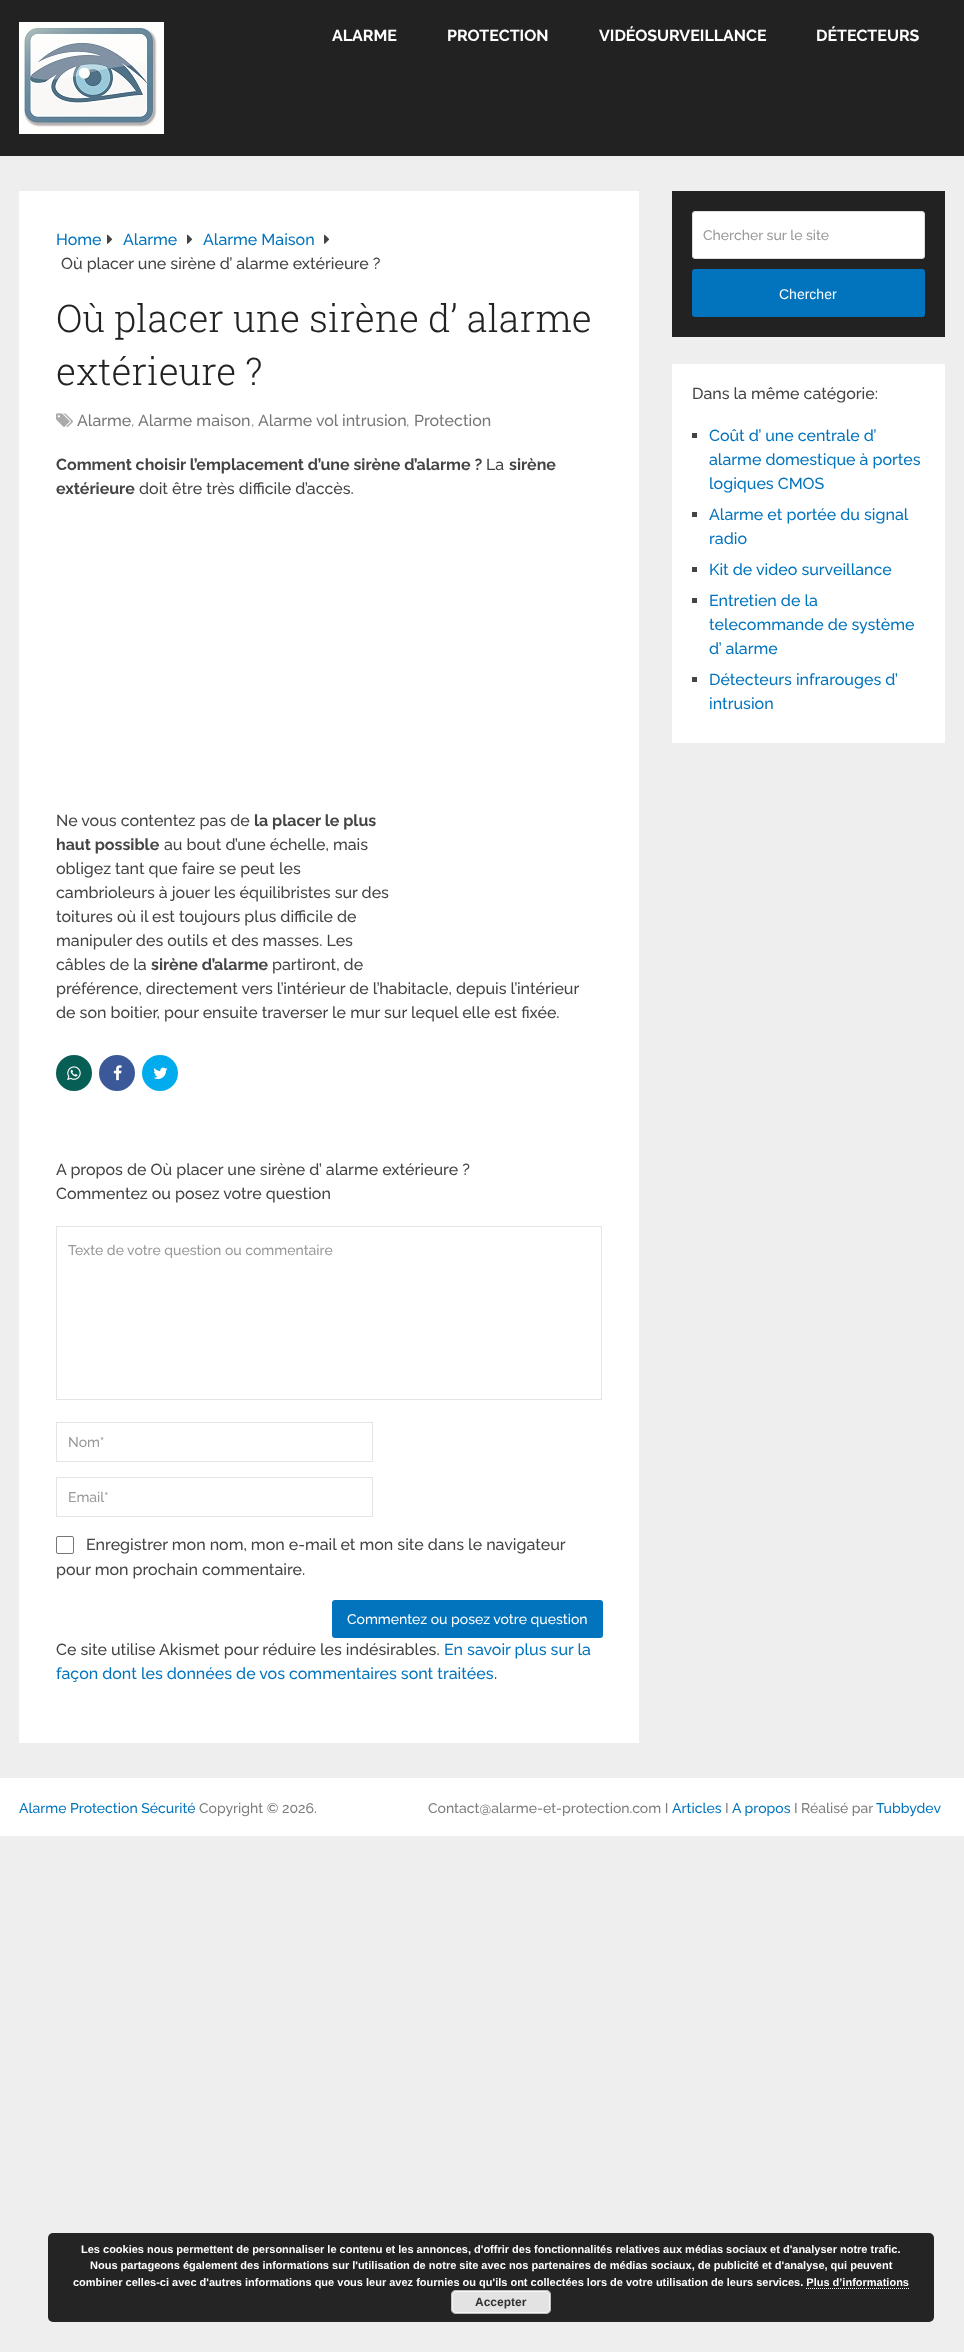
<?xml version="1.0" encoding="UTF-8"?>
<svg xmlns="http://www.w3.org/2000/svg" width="964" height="2352">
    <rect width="100%" height="100%" fill="#EEEEEE"/>
    <rect x="0" y="0" width="964" height="156" fill="#222222"/>
    <image x="19" y="22" width="145" height="112" href="img_01.png"/>
    <text x="332" y="41" font-family="Raleway" font-size="16" font-weight="700" fill="#FFFFFF">ALARME</text>
    <text x="447" y="41" font-family="Raleway" font-size="16" font-weight="700" fill="#FFFFFF">PROTECTION</text>
    <text x="599" y="41" font-family="Raleway" font-size="16" font-weight="700" fill="#FFFFFF">VIDÉOSURVEILLANCE</text>
    <text x="816" y="41" font-family="Raleway" font-size="16" font-weight="700" fill="#FFFFFF">DÉTECTEURS</text>
    <rect x="19" y="191" width="620" height="1552" fill="#FFFFFF"/>
    <text x="56" y="245" font-family="Raleway" font-size="16" font-weight="500" fill="#0274BE">Home</text>
    <image x="107" y="234" width="6" height="10" href="img_02.png"/>
    <text x="123" y="245" font-family="Raleway" font-size="16" font-weight="500" fill="#0274BE">Alarme</text>
    <image x="187" y="234" width="6" height="10" href="img_02.png"/>
    <text x="203" y="245" font-family="Raleway" font-size="16" font-weight="500" fill="#0274BE">Alarme Maison</text>
    <image x="324" y="234" width="6" height="10" href="img_02.png"/>
    <text x="61" y="269" font-family="Raleway" font-size="16" font-weight="500" fill="#444444">Où placer une sirène d’ alarme extérieure ?</text>
    <text font-family="Roboto Slab" font-size="38" font-weight="300" fill="#222222">
        <tspan x="56" y="332">Où placer une sirène d’ alarme</tspan>
        <tspan x="56" y="385">extérieure ?</tspan>
    </text>
    <image x="56" y="413" width="17" height="14" href="img_03.png"/>
    <text x="77" y="426" font-family="Raleway" font-size="16" font-weight="500" fill="#777777">Alarme</text>
    <text x="131" y="426" font-family="Raleway" font-size="16" font-weight="500" fill="#AAAAAA">,</text>
    <text x="138" y="426" font-family="Raleway" font-size="16" font-weight="500" fill="#777777">Alarme maison</text>
    <text x="251" y="426" font-family="Raleway" font-size="16" font-weight="500" fill="#AAAAAA">,</text>
    <text x="258" y="426" font-family="Raleway" font-size="16" font-weight="500" fill="#777777">Alarme vol intrusion</text>
    <text x="406" y="426" font-family="Raleway" font-size="16" font-weight="500" fill="#AAAAAA">,</text>
    <text x="414" y="426" font-family="Raleway" font-size="16" font-weight="500" fill="#777777">Protection</text>
    <text x="56" y="470" font-family="Raleway" font-size="16" font-weight="700" fill="#444444">Comment choisir l’emplacement d’une sirène d’alarme ?</text>
    <text x="486" y="470" font-family="Raleway" font-size="16" font-weight="500" fill="#444444">La</text>
    <text x="509" y="470" font-family="Raleway" font-size="16" font-weight="700" fill="#444444">sirène</text>
    <text x="56" y="494" font-family="Raleway" font-size="16" font-weight="700" fill="#444444">extérieure</text>
    <text x="139" y="494" font-family="Raleway" font-size="16" font-weight="500" fill="#444444">doit être très difficile d’accès.</text>
    <text x="56" y="826" font-family="Raleway" font-size="16" font-weight="500" fill="#444444">Ne vous contentez pas de</text>
    <text x="254" y="826" font-family="Raleway" font-size="16" font-weight="700" fill="#444444">la placer le plus</text>
    <text x="56" y="850" font-family="Raleway" font-size="16" font-weight="700" fill="#444444">haut possible</text>
    <text x="164" y="850" font-family="Raleway" font-size="16" font-weight="500" fill="#444444">au bout d’une échelle, mais</text>
    <text font-family="Raleway" font-size="16" font-weight="500" fill="#444444">
        <tspan x="56" y="874">obligez tant que faire se peut les</tspan>
        <tspan x="56" y="898">cambrioleurs à jouer les équilibristes sur des</tspan>
        <tspan x="56" y="922">toitures où il est toujours plus difficile de</tspan>
        <tspan x="56" y="946">manipuler des outils et des masses. Les</tspan>
        <tspan x="56" y="970">câbles de la</tspan>
    </text>
    <text x="151" y="970" font-family="Raleway" font-size="16" font-weight="700" fill="#444444">sirène d’alarme</text>
    <text x="272" y="970" font-family="Raleway" font-size="16" font-weight="500" fill="#444444">partiront, de</text>
    <text font-family="Raleway" font-size="16" font-weight="500" fill="#444444">
        <tspan x="56" y="994">préférence, directement vers l’intérieur de l’habitacle, depuis l’intérieur</tspan>
        <tspan x="56" y="1018">de son boitier, pour ensuite traverser le mur sur lequel elle est fixée.</tspan>
    </text>
    <circle cx="74" cy="1073" r="18" fill="#075E54"/>
    <image x="67" y="1066" width="14" height="15" href="img_04.png"/>
    <circle cx="117" cy="1073" r="18" fill="#3B5998"/>
    <image x="113" y="1065" width="9" height="16" href="img_05.png"/>
    <circle cx="160" cy="1073" r="18" fill="#00ACED"/>
    <image x="153" y="1067" width="15" height="12" href="img_06.png"/>
    <text font-family="Raleway" font-size="16" font-weight="500" fill="#444444">
        <tspan x="56" y="1175">A propos de Où placer une sirène d’ alarme extérieure ?</tspan>
        <tspan x="56" y="1199">Commentez ou posez votre question</tspan>
    </text>
    <rect x="56.5" y="1226.5" width="545" height="173" fill="none" stroke="#E4E4E4"/>
    <text x="68" y="1255" font-family="Raleway" font-size="14" font-weight="500" fill="#999999">Texte de votre question ou commentaire</text>
    <rect x="56.5" y="1422.5" width="316" height="39" fill="none" stroke="#E4E4E4"/>
    <text x="68" y="1447" font-family="Raleway" font-size="14" font-weight="500" fill="#999999">Nom*</text>
    <rect x="56.5" y="1477.5" width="316" height="39" fill="none" stroke="#E4E4E4"/>
    <text x="68" y="1502" font-family="Raleway" font-size="14" font-weight="500" fill="#999999">Email*</text>
    <rect x="56.5" y="1536.5" width="17" height="17" rx="1.5" fill="none" stroke="#767676"/>
    <text x="86" y="1550" font-family="Raleway" font-size="16" font-weight="500" fill="#444444">Enregistrer mon nom, mon e-mail et mon site dans le navigateur</text>
    <text x="56" y="1575" font-family="Raleway" font-size="16" font-weight="500" fill="#444444">pour mon prochain commentaire.</text>
    <rect x="332" y="1600" width="271" height="38" rx="3" fill="#0274BE"/>
    <text x="347" y="1624" font-family="Raleway" font-size="14" font-weight="500" fill="#FFFFFF">Commentez ou posez votre question</text>
    <text x="56" y="1655" font-family="Raleway" font-size="16" font-weight="500" fill="#444444">Ce site utilise Akismet pour réduire les indésirables.</text>
    <text x="444" y="1655" font-family="Raleway" font-size="16" font-weight="500" fill="#0274BE">En savoir plus sur la</text>
    <text x="56" y="1679" font-family="Raleway" font-size="16" font-weight="500" fill="#0274BE">façon dont les données de vos commentaires sont traitées</text>
    <text x="494" y="1679" font-family="Raleway" font-size="16" font-weight="500" fill="#444444">.</text>
    <rect x="672" y="191" width="273" height="146" fill="#222222"/>
    <rect x="692.5" y="211.5" width="232" height="47" rx="2.5" fill="#FFFFFF" stroke="#DDDDDD"/>
    <text x="703" y="240" font-family="Raleway" font-size="14" font-weight="500" fill="#999999">Chercher sur le site</text>
    <rect x="692" y="269" width="233" height="48" rx="3" fill="#0274BE"/>
    <text x="779" y="299" font-family="Liberation Sans" font-size="14" fill="#FFFFFF">Chercher</text>
    <rect x="672" y="364" width="273" height="379" fill="#FFFFFF"/>
    <text x="692" y="399" font-family="Raleway" font-size="16" font-weight="500" fill="#444444">Dans la même catégorie:</text>
    <rect x="692" y="433" width="5" height="5" fill="#444444"/>
    <text font-family="Raleway" font-size="16" font-weight="500" fill="#0274BE">
        <tspan x="709" y="441">Coût d’ une centrale d’</tspan>
        <tspan x="709" y="465">alarme domestique à portes</tspan>
        <tspan x="709" y="489">logiques CMOS</tspan>
    </text>
    <rect x="692" y="512" width="5" height="5" fill="#444444"/>
    <text font-family="Raleway" font-size="16" font-weight="500" fill="#0274BE">
        <tspan x="709" y="520">Alarme et portée du signal</tspan>
        <tspan x="709" y="544">radio</tspan>
    </text>
    <rect x="692" y="567" width="5" height="5" fill="#444444"/>
    <text x="709" y="575" font-family="Raleway" font-size="16" font-weight="500" fill="#0274BE">Kit de video surveillance</text>
    <rect x="692" y="598" width="5" height="5" fill="#444444"/>
    <text font-family="Raleway" font-size="16" font-weight="500" fill="#0274BE">
        <tspan x="709" y="606">Entretien de la</tspan>
        <tspan x="709" y="630">telecommande de système</tspan>
        <tspan x="709" y="654">d’ alarme</tspan>
    </text>
    <rect x="692" y="677" width="5" height="5" fill="#444444"/>
    <text font-family="Raleway" font-size="16" font-weight="500" fill="#0274BE">
        <tspan x="709" y="685">Détecteurs infrarouges d’</tspan>
        <tspan x="709" y="709">intrusion</tspan>
    </text>
    <rect x="0" y="1778" width="964" height="58" fill="#FFFFFF"/>
    <text x="19" y="1813" font-family="Raleway" font-size="14" font-weight="500" fill="#0274BE">Alarme Protection Sécurité</text>
    <text x="199" y="1813" font-family="Raleway" font-size="14" font-weight="500" fill="#7E7D7D">Copyright © 2026.</text>
    <text x="428" y="1813" font-family="Raleway" font-size="14" font-weight="500" fill="#7E7D7D">Contact@alarme-et-protection.com I</text>
    <text x="672" y="1813" font-family="Raleway" font-size="14" font-weight="500" fill="#0274BE">Articles</text>
    <text x="725" y="1813" font-family="Raleway" font-size="14" font-weight="500" fill="#7E7D7D">I</text>
    <text x="732" y="1813" font-family="Raleway" font-size="14" font-weight="500" fill="#0274BE">A propos</text>
    <text x="794" y="1813" font-family="Raleway" font-size="14" font-weight="500" fill="#7E7D7D">I</text>
    <text x="801" y="1813" font-family="Raleway" font-size="14" font-weight="500" fill="#7E7D7D">Réalisé par</text>
    <text x="876" y="1813" font-family="Raleway" font-size="14" font-weight="500" fill="#0274BE">Tubbydev</text>
    <rect x="48" y="2233" width="886" height="89" rx="5" fill="#242424"/>
    <text x="81" y="2253" font-family="Liberation Sans" font-size="11" font-weight="700" fill="#FFFFFF">Les cookies nous permettent de personnaliser le contenu et les annonces, d'offrir des fonctionnalités relatives aux médias sociaux et d'analyser notre trafic.</text>
    <text x="90" y="2269" font-family="Liberation Sans" font-size="11" font-weight="700" fill="#FFFFFF">Nous partageons également des informations sur l'utilisation de notre site avec nos partenaires de médias sociaux, de publicité et d'analyse, qui peuvent</text>
    <text x="73" y="2286" font-family="Liberation Sans" font-size="11" font-weight="700" fill="#FFFFFF">combiner celles-ci avec d'autres informations que vous leur avez fournies ou qu'ils ont collectées lors de votre utilisation de leurs services. Plus d’informations</text>
    <path d="M 806 2288.5 H 909" fill="none" stroke="#FFFFFF" stroke-dasharray="1 1"/>
    <rect x="451" y="2290" width="100" height="24" rx="5" fill="#E3E3E3"/>
    <rect x="452.5" y="2291.5" width="97" height="21" rx="3.5" fill="none" stroke="#F6F6F6"/>
    <rect x="451.5" y="2290.5" width="99" height="23" rx="4.5" fill="none" stroke="#BBBBBB"/>
    <text x="475" y="2306" font-family="Liberation Sans" font-size="12" font-weight="700" fill="#333333">Accepter</text>
</svg>
